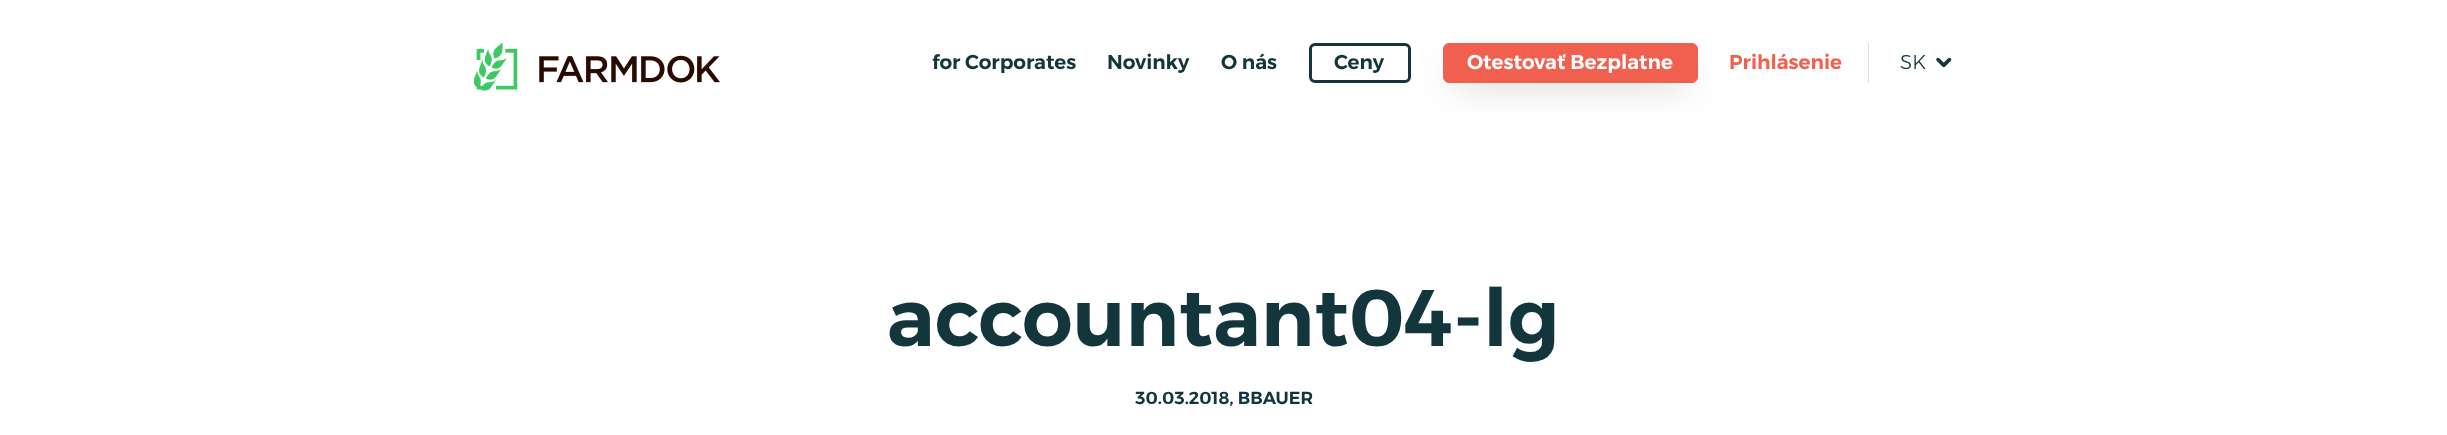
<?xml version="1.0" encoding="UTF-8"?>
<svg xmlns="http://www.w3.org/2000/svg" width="2447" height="435">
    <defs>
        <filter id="blur1" x="-50%" y="-200%" width="200%" height="500%"><feGaussianBlur stdDeviation="19"/></filter>
    </defs>
    <rect width="100%" height="100%" fill="#FFFFFF"/>
    <image x="474" y="43" width="246" height="48" href="img_01.png"/>
    <text x="932" y="69" font-family="Montserrat" font-size="20" font-weight="600" fill="#13353C">for Corporates</text>
    <text x="1107" y="69" font-family="Montserrat" font-size="20" font-weight="600" fill="#13353C">Novinky</text>
    <text x="1221" y="69" font-family="Montserrat" font-size="20" font-weight="600" fill="#13353C">O nás</text>
    <rect x="1310.5" y="44.5" width="99" height="37" rx="4.5" fill="none" stroke="#13353C" stroke-width="3"/>
    <text x="1334" y="69" font-family="Montserrat" font-size="20" font-weight="600" fill="#13353C">Ceny</text>
    <rect x="1455" y="68" width="230" height="15" fill="#000000" fill-opacity="0.25" filter="url(#blur1)"/>
    <rect x="1443.5" y="43.5" width="254" height="39" rx="5.5" fill="#F15F4E" stroke="#F15F4E"/>
    <text x="1467" y="69" font-family="Montserrat" font-size="20" font-weight="600" fill="#FFFFFF">Otestovať Bezplatne</text>
    <rect x="1868" y="43" width="1" height="40" fill="#DEDEDE"/>
    <text x="1729" y="69" font-family="Montserrat" font-size="20" font-weight="600" fill="#F15F4E">Prihlásenie</text>
    <text x="1900" y="69" font-family="Montserrat" font-size="20" font-weight="300" fill="#13353C">SK</text>
    <image x="1936" y="57" width="16" height="11" href="img_02.png"/>
    <text x="887" y="346" font-family="Montserrat" font-size="80" font-weight="600" fill="#13353C">accountant04-lg</text>
    <text x="1135" y="404" font-family="Montserrat" font-size="17.5" font-weight="600" fill="#13353C">30.03.2018, BBAUER</text>
</svg>
